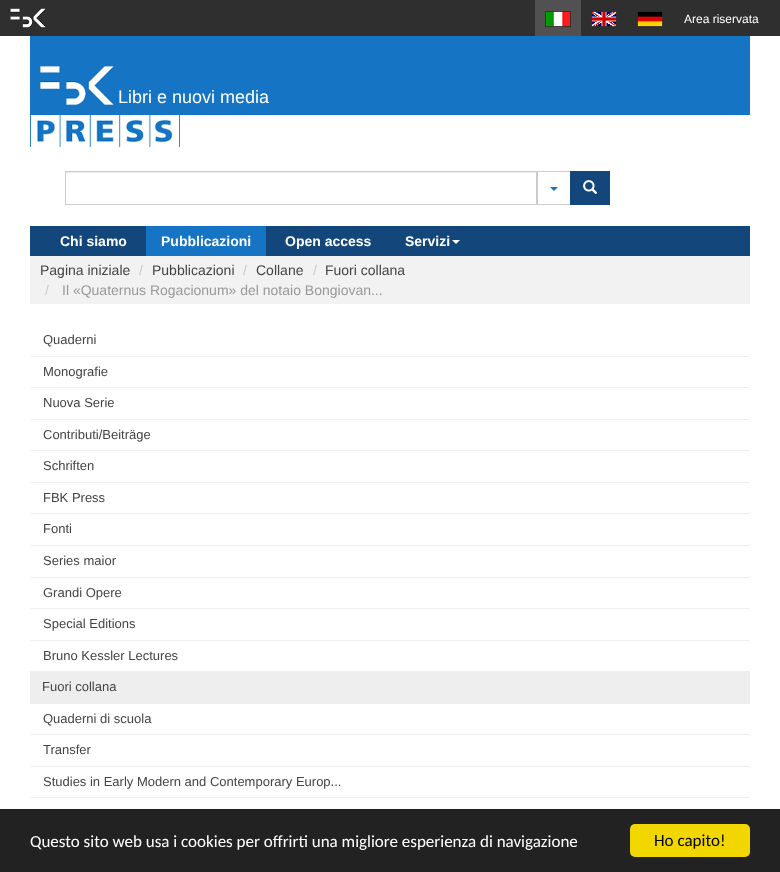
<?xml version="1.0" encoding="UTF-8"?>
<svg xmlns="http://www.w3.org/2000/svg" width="780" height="872">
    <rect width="100%" height="100%" fill="#FFFFFF"/>
    <rect x="0" y="0" width="780" height="36" fill="#2F2F2F"/>
    <image x="9" y="8" width="37" height="20" href="img_01.png"/>
    <rect x="535" y="0" width="46" height="36" fill="#515151"/>
    <image x="545" y="11" width="26" height="16" href="img_02.png"/>
    <image x="591" y="11" width="26" height="16" href="img_03.png"/>
    <image x="637" y="11" width="26" height="16" href="img_04.png"/>
    <text x="684" y="23" font-family="Liberation Sans" font-size="12" fill="#FFFFFF">Area riservata</text>
    <rect x="30" y="36" width="720" height="79" fill="#1574C4"/>
    <image x="40" y="66" width="74" height="39" href="img_05.png"/>
    <text x="118" y="103" font-family="Liberation Sans" font-size="18" fill="#FFFFFF">Libri e nuovi media</text>
    <image x="30" y="115" width="150" height="32" href="img_06.png"/>
    <rect x="66" y="172" width="470" height="1" fill="#ECECEC"/>
    <rect x="65.5" y="171.5" width="471" height="33" fill="none" stroke="#CCCCCC"/>
    <rect x="537.5" y="171.5" width="33" height="33" fill="none" stroke="#CCCCCC"/>
    <path d="M 550 187 H 558 L 554 191 Z" fill="#1574C4"/>
    <rect x="570" y="171" width="40" height="34" fill="#13467B"/>
    <image x="583" y="180" width="15" height="14" href="img_07.png"/>
    <rect x="30" y="226" width="720" height="30" fill="#13467B"/>
    <text x="60" y="246" font-family="Liberation Sans" font-size="14" font-weight="700" fill="#FFFFFF">Chi siamo</text>
    <rect x="146" y="226" width="120" height="30" fill="#1574C4"/>
    <text x="161" y="246" font-family="Liberation Sans" font-size="14" font-weight="700" fill="#FFFFFF">Pubblicazioni</text>
    <text x="285" y="246" font-family="Liberation Sans" font-size="14" font-weight="700" fill="#FFFFFF">Open access</text>
    <text x="405" y="246" font-family="Liberation Sans" font-size="14" font-weight="700" fill="#FFFFFF">Servizi</text>
    <path d="M 452 240 H 460 L 456 244 Z" fill="#FFFFFF"/>
    <rect x="30" y="256" width="720" height="48" fill="#F2F2F2"/>
    <text x="40" y="275" font-family="Liberation Sans" font-size="14" fill="#444444">Pagina iniziale</text>
    <text x="139" y="275" font-family="Liberation Sans" font-size="14" fill="#CCCCCC">/</text>
    <text x="152" y="275" font-family="Liberation Sans" font-size="14" fill="#444444">Pubblicazioni</text>
    <text x="243" y="275" font-family="Liberation Sans" font-size="14" fill="#CCCCCC">/</text>
    <text x="256" y="275" font-family="Liberation Sans" font-size="14" fill="#444444">Collane</text>
    <text x="313" y="275" font-family="Liberation Sans" font-size="14" fill="#CCCCCC">/</text>
    <text x="325" y="275" font-family="Liberation Sans" font-size="14" fill="#444444">Fuori collana</text>
    <text x="45" y="295" font-family="Liberation Sans" font-size="14" fill="#CCCCCC">/</text>
    <text x="62" y="295" font-family="Liberation Sans" font-size="14" fill="#999999">Il «Quaternus Rogacionum» del notaio Bongiovan...</text>
    <path d="M 750 357 H 30 L 31 356 H 749 Z" fill="#EEEEEE"/>
    <text x="43" y="344" font-family="Liberation Sans" font-size="13" fill="#444444">Quaderni</text>
    <path d="M 750 388 H 30 L 31 387 H 749 Z" fill="#EEEEEE"/>
    <text x="43" y="376" font-family="Liberation Sans" font-size="13" fill="#444444">Monografie</text>
    <path d="M 750 420 H 30 L 31 419 H 749 Z" fill="#EEEEEE"/>
    <text x="43" y="407" font-family="Liberation Sans" font-size="13" fill="#444444">Nuova Serie</text>
    <path d="M 750 451 H 30 L 31 450 H 749 Z" fill="#EEEEEE"/>
    <text x="43" y="439" font-family="Liberation Sans" font-size="13" fill="#444444">Contributi/Beiträge</text>
    <path d="M 750 483 H 30 L 31 482 H 749 Z" fill="#EEEEEE"/>
    <text x="43" y="470" font-family="Liberation Sans" font-size="13" fill="#444444">Schriften</text>
    <path d="M 750 514 H 30 L 31 513 H 749 Z" fill="#EEEEEE"/>
    <text x="43" y="502" font-family="Liberation Sans" font-size="13" fill="#444444">FBK Press</text>
    <path d="M 750 546 H 30 L 31 545 H 749 Z" fill="#EEEEEE"/>
    <text x="43" y="533" font-family="Liberation Sans" font-size="13" fill="#444444">Fonti</text>
    <path d="M 750 578 H 30 L 31 577 H 749 Z" fill="#EEEEEE"/>
    <text x="43" y="565" font-family="Liberation Sans" font-size="13" fill="#444444">Series maior</text>
    <path d="M 750 609 H 30 L 31 608 H 749 Z" fill="#EEEEEE"/>
    <text x="43" y="597" font-family="Liberation Sans" font-size="13" fill="#444444">Grandi Opere</text>
    <path d="M 750 641 H 30 L 31 640 H 749 Z" fill="#EEEEEE"/>
    <text x="43" y="628" font-family="Liberation Sans" font-size="13" fill="#444444">Special Editions</text>
    <text x="43" y="660" font-family="Liberation Sans" font-size="13" fill="#444444">Bruno Kessler Lectures</text>
    <rect x="30" y="671" width="720" height="33" fill="#EEEEEE"/>
    <text x="42" y="691" font-family="Liberation Sans" font-size="13" fill="#444444">Fuori collana</text>
    <path d="M 750 735 H 30 L 31 734 H 749 Z" fill="#EEEEEE"/>
    <text x="43" y="723" font-family="Liberation Sans" font-size="13" fill="#444444">Quaderni di scuola</text>
    <path d="M 750 767 H 30 L 31 766 H 749 Z" fill="#EEEEEE"/>
    <text x="43" y="754" font-family="Liberation Sans" font-size="13" fill="#444444">Transfer</text>
    <path d="M 750 798 H 30 L 31 797 H 749 Z" fill="#EEEEEE"/>
    <text x="43" y="786" font-family="Liberation Sans" font-size="13" fill="#444444">Studies in Early Modern and Contemporary Europ...</text>
    <rect x="0" y="809" width="780" height="63" fill="#222222"/>
    <text x="30" y="847" font-family="Carlito" font-size="17" fill="#FFFFFF">Questo sito web usa i cookies per offrirti una migliore esperienza di navigazione</text>
    <rect x="630" y="824" width="120" height="33" rx="5" fill="#F1D600"/>
    <text x="654" y="846" font-family="Carlito" font-size="17" fill="#000000">Ho capito!</text>
</svg>
